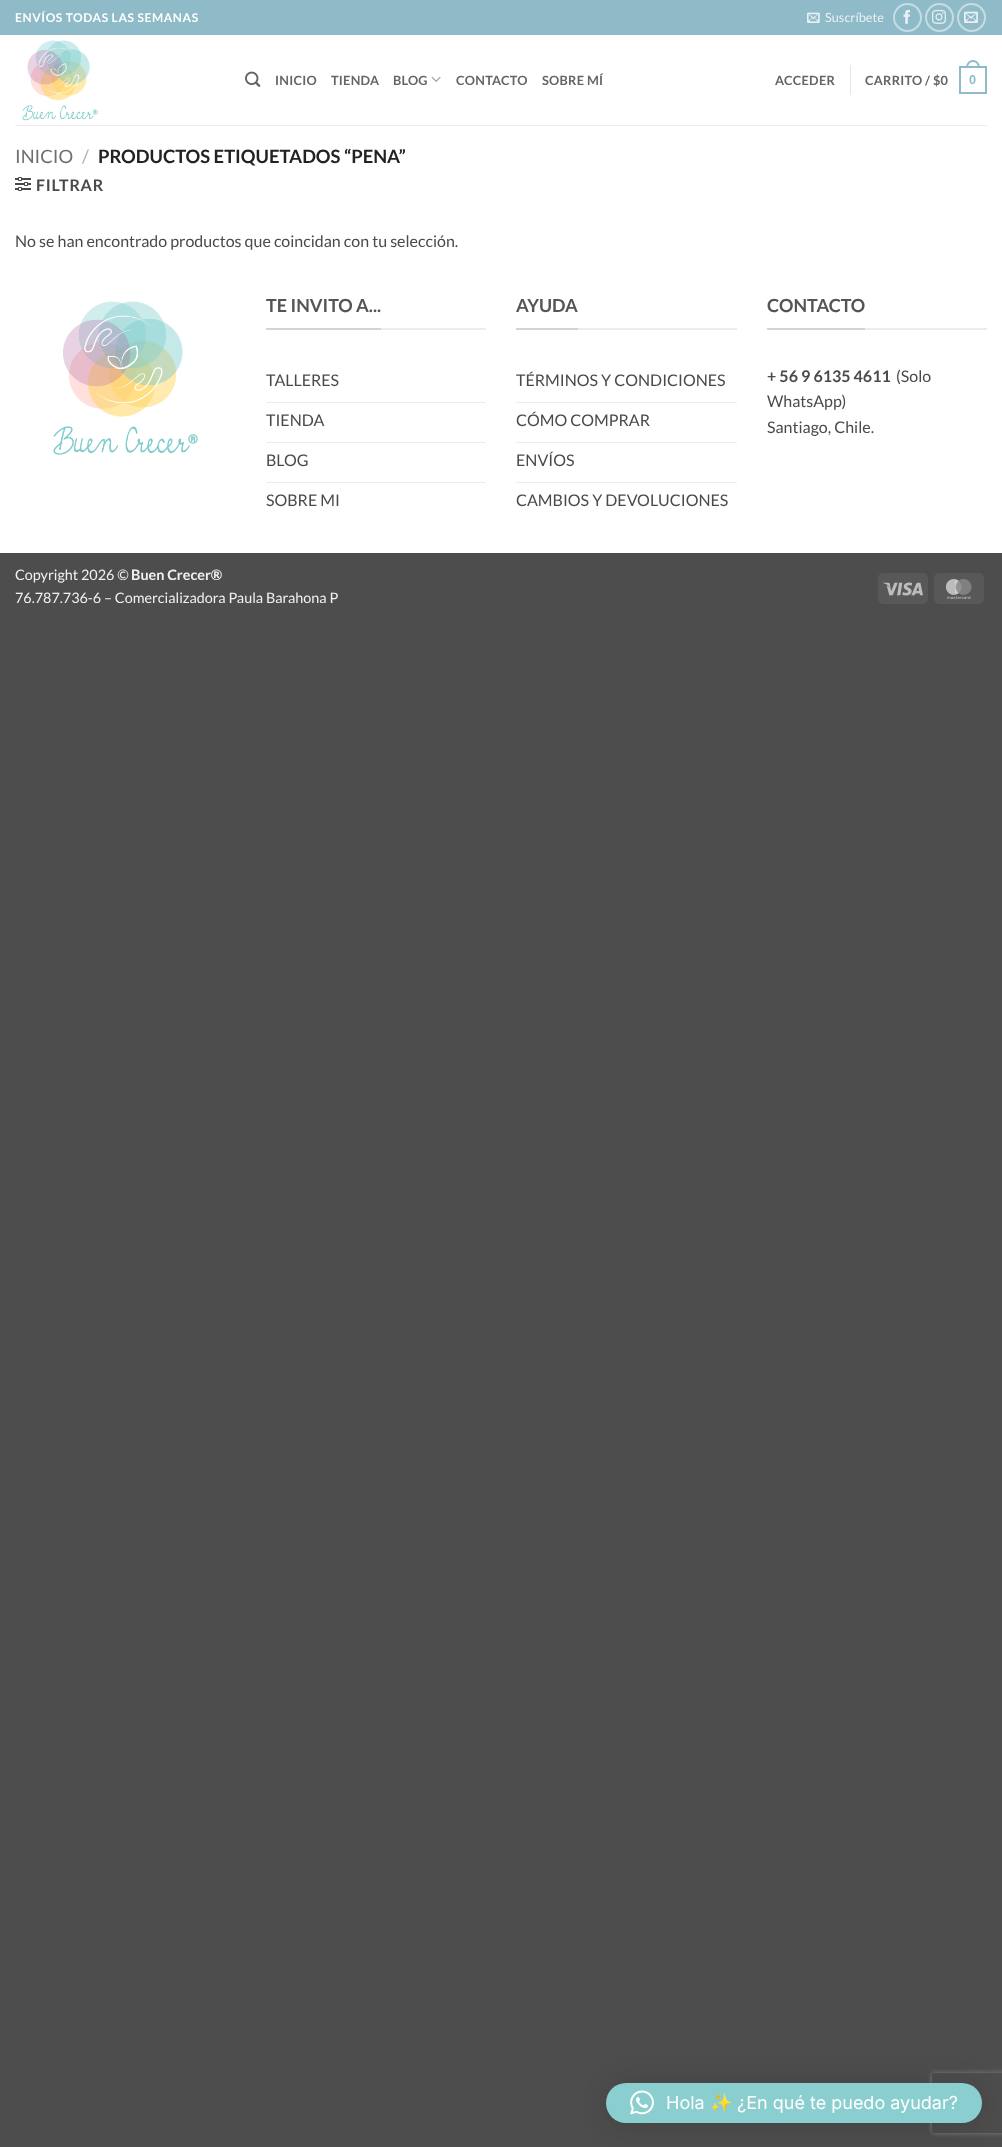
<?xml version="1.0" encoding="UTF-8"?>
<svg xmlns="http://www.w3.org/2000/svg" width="1002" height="2147">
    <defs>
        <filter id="blur1" x="-50%" y="-200%" width="200%" height="500%"><feGaussianBlur stdDeviation="16"/></filter>
        <clipPath id="clip1"><path d="M 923 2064 H 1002 V 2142 H 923 Z M 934 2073 H 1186 C 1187 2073 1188 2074 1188 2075 V 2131 C 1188 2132 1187 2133 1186 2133 H 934 C 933 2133 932 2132 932 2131 V 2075 C 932 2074 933 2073 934 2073 Z" clip-rule="evenodd"/></clipPath>
        <filter id="blur2" x="-50%" y="-200%" width="200%" height="500%"><feGaussianBlur stdDeviation="2.5"/></filter>
    </defs>
    <rect width="100%" height="100%" fill="#4D4D4D"/>
    <rect x="0" y="35" width="1002" height="518" fill="#FFFFFF"/>
    <rect x="0" y="0" width="1002" height="35" fill="#8FBAC8"/>
    <text x="15" y="22" font-family="Lato" font-size="12" font-weight="700" letter-spacing="0.6" fill="#FFFFFF">ENVÍOS TODAS LAS SEMANAS</text>
    <image x="807" y="12" width="13" height="11" href="img_01.png"/>
    <text x="825" y="22" font-family="Lato" font-size="12.75" fill="#E9F1F4">Suscríbete</text>
    <circle cx="907.5" cy="17.5" r="13.5" fill="none" stroke="#C7DDE4" stroke-width="2"/>
    <image x="903" y="9" width="7" height="15" href="img_02.png"/>
    <circle cx="939.5" cy="17.5" r="13.5" fill="none" stroke="#C7DDE4" stroke-width="2"/>
    <image x="932" y="9" width="14" height="15" href="img_03.png"/>
    <circle cx="971.5" cy="17.5" r="13.5" fill="none" stroke="#C7DDE4" stroke-width="2"/>
    <image x="964" y="11" width="14" height="12" href="img_04.png"/>
    <image x="22" y="40" width="76" height="81" href="img_05.png"/>
    <image x="245" y="71" width="16" height="16" href="img_06.png"/>
    <text x="275" y="85" font-family="Lato" font-size="12.75" font-weight="700" letter-spacing="0.25" fill="#656565">INICIO</text>
    <text x="331" y="85" font-family="Lato" font-size="12.75" font-weight="700" letter-spacing="0.25" fill="#656565">TIENDA</text>
    <text x="393" y="85" font-family="Lato" font-size="12.75" font-weight="700" letter-spacing="0.25" fill="#656565">BLOG</text>
    <image x="431" y="76" width="10" height="6" href="img_07.png"/>
    <text x="456" y="85" font-family="Lato" font-size="12.75" font-weight="700" letter-spacing="0.25" fill="#656565">CONTACTO</text>
    <text x="542" y="85" font-family="Lato" font-size="12.75" font-weight="700" letter-spacing="0.25" fill="#656565">SOBRE MÍ</text>
    <text x="775" y="85" font-family="Lato" font-size="12.75" font-weight="700" letter-spacing="0.25" fill="#656565">ACCEDER</text>
    <rect x="850" y="65" width="1" height="30" fill="#E6E6E6"/>
    <text x="865" y="85" font-family="Lato" font-size="12.75" font-weight="700" letter-spacing="0.25" fill="#656565">CARRITO / $0</text>
    <rect x="960" y="67" width="26" height="26" fill="none" stroke="#8FBAC8" stroke-width="2"/>
    <path d="M 973 60 C 977.5 60 980 64 980 68 H 966 C 966 64 968.5 60 973 60 Z M 973 62 C 976.5 62 978 65 978 68 H 968 C 968 65 969.5 62 973 62 Z" fill="#8FBAC8" fill-rule="evenodd"/>
    <text x="969" y="84" font-family="Liberation Sans" font-size="12.75" font-weight="700" letter-spacing="0.25" fill="#8FBAC8">0</text>
    <rect x="15" y="125" width="972" height="1" fill="#EDEDED"/>
    <text x="15" y="163" font-family="Lato" font-size="18.4" fill="#6E6E6E">INICIO</text>
    <text x="82" y="163" font-family="Lato" font-size="18.4" fill="#B2B2B2">/</text>
    <text x="98" y="163" font-family="Lato" font-size="18.4" font-weight="700" fill="#222222">PRODUCTOS ETIQUETADOS “PENA”</text>
    <image x="15" y="177" width="16" height="14" href="img_08.png"/>
    <text x="36" y="191" font-family="Lato" font-size="16" font-weight="700" letter-spacing="0.75" fill="#4A4A4A">FILTRAR</text>
    <text x="15" y="247" font-family="Lato" font-size="16" fill="#4A4A4A">No se han encontrado productos que coincidan con tu selección.</text>
    <image x="53" y="301" width="145" height="154" href="img_09.png"/>
    <rect x="381" y="328" width="105" height="2" fill="#ECECEC"/>
    <rect x="266" y="328" width="115" height="2" fill="#D4D4D4"/>
    <text x="266" y="312" font-family="Lato" font-size="18" font-weight="700" fill="#555555">TE INVITO A...</text>
    <rect x="266" y="402" width="220" height="1" fill="#ECECEC"/>
    <text x="266" y="386" font-family="Lato" font-size="16" fill="#4A4A4A">TALLERES</text>
    <rect x="266" y="442" width="220" height="1" fill="#ECECEC"/>
    <text x="266" y="426" font-family="Lato" font-size="16" fill="#4A4A4A">TIENDA</text>
    <rect x="266" y="482" width="220" height="1" fill="#ECECEC"/>
    <text x="266" y="466" font-family="Lato" font-size="16" fill="#4A4A4A">BLOG</text>
    <text x="266" y="506" font-family="Lato" font-size="16" fill="#4A4A4A">SOBRE MI</text>
    <rect x="578" y="328" width="159" height="2" fill="#ECECEC"/>
    <rect x="516" y="328" width="62" height="2" fill="#D4D4D4"/>
    <text x="516" y="312" font-family="Lato" font-size="18" font-weight="700" fill="#555555">AYUDA</text>
    <rect x="516" y="402" width="221" height="1" fill="#ECECEC"/>
    <text x="516" y="386" font-family="Lato" font-size="16" fill="#4A4A4A">TÉRMINOS Y CONDICIONES</text>
    <rect x="516" y="442" width="221" height="1" fill="#ECECEC"/>
    <text x="516" y="426" font-family="Lato" font-size="16" fill="#4A4A4A">CÓMO COMPRAR</text>
    <rect x="516" y="482" width="221" height="1" fill="#ECECEC"/>
    <text x="516" y="466" font-family="Lato" font-size="16" fill="#4A4A4A">ENVÍOS</text>
    <text x="516" y="506" font-family="Lato" font-size="16" fill="#4A4A4A">CAMBIOS Y DEVOLUCIONES</text>
    <rect x="865" y="328" width="122" height="2" fill="#ECECEC"/>
    <rect x="767" y="328" width="98" height="2" fill="#D4D4D4"/>
    <text x="767" y="312" font-family="Lato" font-size="18" font-weight="700" fill="#555555">CONTACTO</text>
    <text x="767" y="382" font-family="Lato" font-size="16" font-weight="700" fill="#4A4A4A">+ 56 9 6135 4611</text>
    <text x="896" y="382" font-family="Lato" font-size="16" fill="#4A4A4A">(Solo</text>
    <text font-family="Lato" font-size="16" fill="#4A4A4A">
        <tspan x="767" y="407">WhatsApp)</tspan>
        <tspan x="767" y="433">Santiago, Chile.</tspan>
    </text>
    <text x="15" y="580" font-family="Lato" font-size="14.4" fill="#F1F1F1">Copyright 2026 ©</text>
    <text x="131" y="580" font-family="Lato" font-size="14.4" font-weight="700" fill="#F1F1F1">Buen Crecer®</text>
    <text x="15" y="603" font-family="Lato" font-size="14.4" fill="#F1F1F1">76.787.736-6 – Comercializadora Paula Barahona P</text>
    <rect x="878" y="573" width="50" height="31" rx="5" fill="#585858"/>
    <image x="883" y="582" width="40" height="14" href="img_10.png"/>
    <rect x="934" y="573" width="50" height="31" rx="5" fill="#585858"/>
    <image x="945" y="579" width="27" height="20" href="img_11.png"/>
    <rect x="606" y="2085" width="376" height="40" rx="20" fill="#000000" fill-opacity="0.16" filter="url(#blur1)"/>
    <g clip-path="url(#clip1)">
        <rect x="932" y="2073" width="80" height="60" rx="2" fill="#808080" filter="url(#blur2)"/>
    </g>
    <rect x="606" y="2083" width="376" height="40" rx="20" fill="#8ACECF"/>
    <image x="630" y="2090" width="24" height="25" href="img_12.png"/>
    <text x="666" y="2109" font-family="Inter" font-size="18" fill="#FFFFFF">Hola</text>
    <text x="710" y="2109" font-family="Noto Color Emoji" font-size="18" fill="#FFFFFF">✨</text>
    <text x="737" y="2109" font-family="Inter" font-size="18" fill="#FFFFFF">¿En qué te puedo ayudar?</text>
</svg>
